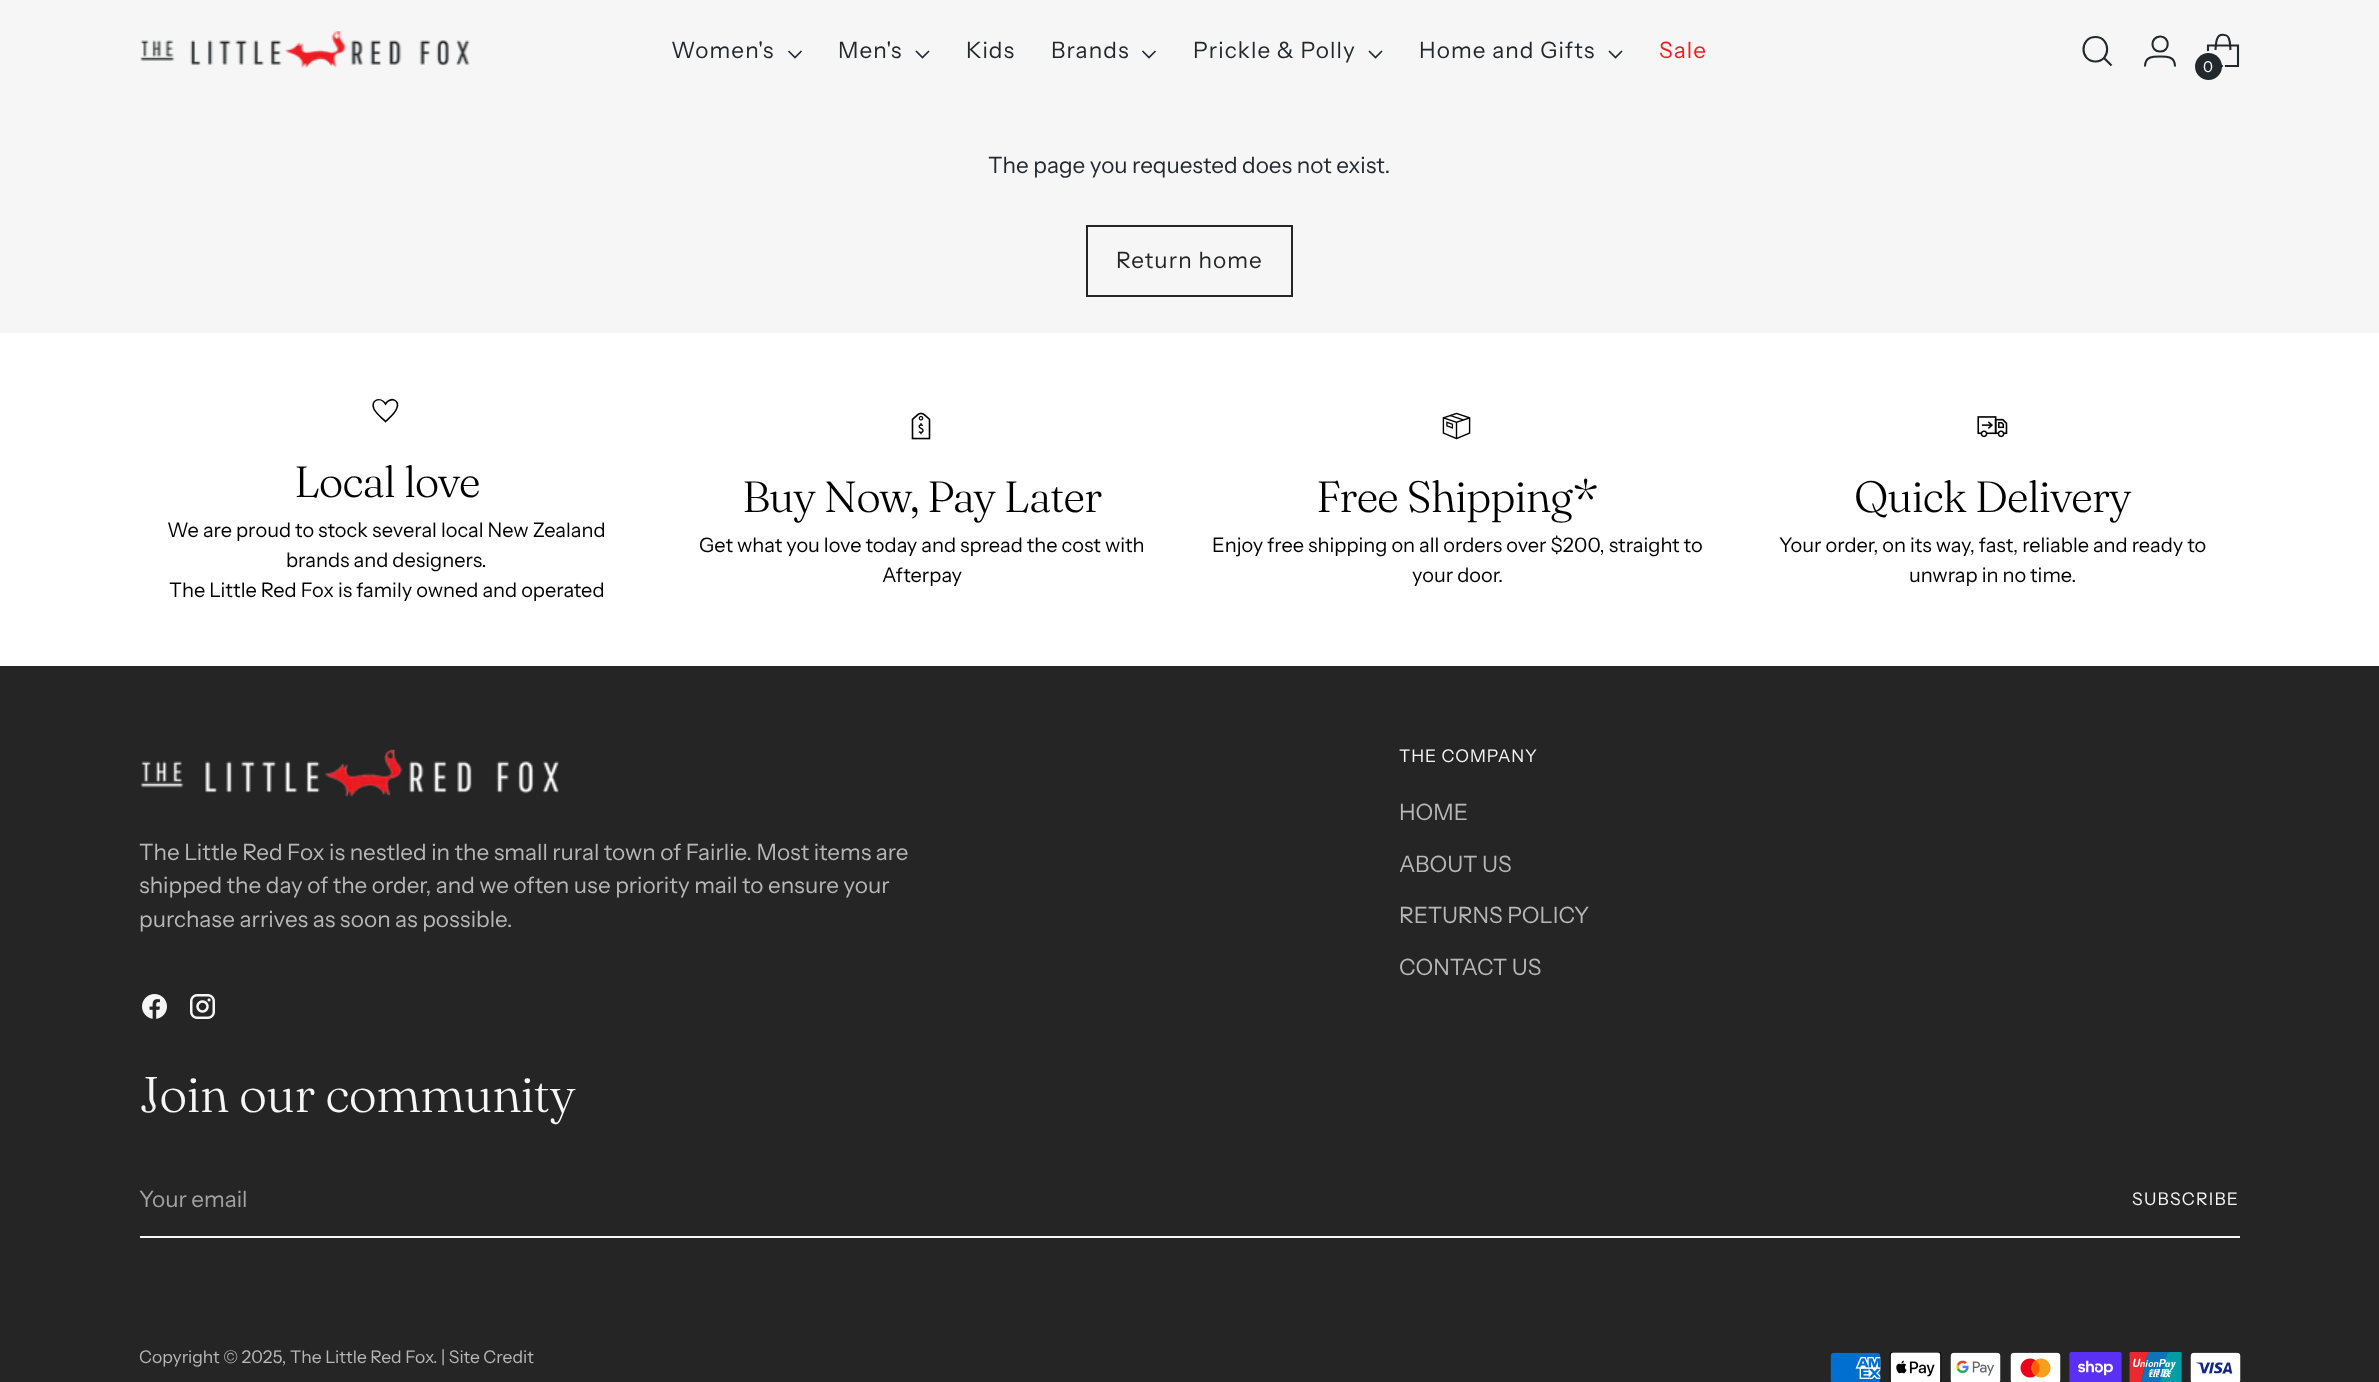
<?xml version="1.0" encoding="UTF-8"?>
<svg xmlns="http://www.w3.org/2000/svg" width="2379" height="1382">
    <rect width="100%" height="100%" fill="#F6F6F6"/>
    <image x="140" y="31" width="330" height="37" href="img_01.png"/>
    <text x="671" y="58" font-family="Instrument Sans" font-size="22.5" letter-spacing="1.1" fill="#22292D">Women's</text>
    <path d="M 788.5 51 L 795 57.5 L 801.5 51" fill="none" stroke="#22292D" stroke-width="1.7"/>
    <text x="838" y="58" font-family="Instrument Sans" font-size="22.5" letter-spacing="1.1" fill="#22292D">Men's</text>
    <path d="M 916 51 L 922.5 57.5 L 929 51" fill="none" stroke="#22292D" stroke-width="1.7"/>
    <text x="966" y="58" font-family="Instrument Sans" font-size="22.5" letter-spacing="1.1" fill="#22292D">Kids</text>
    <text x="1051" y="58" font-family="Instrument Sans" font-size="22.5" letter-spacing="1.1" fill="#22292D">Brands</text>
    <path d="M 1142.5 51 L 1149 57.5 L 1155.5 51" fill="none" stroke="#22292D" stroke-width="1.7"/>
    <text x="1193" y="58" font-family="Instrument Sans" font-size="22.5" letter-spacing="1.1" fill="#22292D">Prickle &amp; Polly</text>
    <path d="M 1369 51 L 1375.5 57.5 L 1382 51" fill="none" stroke="#22292D" stroke-width="1.7"/>
    <text x="1419" y="58" font-family="Instrument Sans" font-size="22.5" letter-spacing="1.1" fill="#22292D">Home and Gifts</text>
    <path d="M 1609 51 L 1615.5 57.5 L 1622 51" fill="none" stroke="#22292D" stroke-width="1.7"/>
    <text x="1659" y="58" font-family="Instrument Sans" font-size="22.5" letter-spacing="1.1" fill="#EE1C25">Sale</text>
    <path d="M 2095.5 61.5 C 2111 61.5 2111 37 2095.5 37 C 2079.5 37 2079.5 61.5 2095.5 61.5 Z" fill="none" stroke="#22292D" stroke-width="2.1" stroke-linecap="round"/>
    <path d="M 2104 58 L 2111.5 65.5" fill="none" stroke="#22292D" stroke-width="2.1"/>
    <path d="M 2160 51.5 C 2170.5 52 2170 36 2160 36.5 C 2150 37 2150 51.5 2160 51.5 Z M 2145 66.5 C 2145 56.5 2152.5 56.5 2160 56.5 C 2167.5 56.5 2175 56.5 2175 66.5" fill="none" stroke="#22292D" stroke-width="2.1"/>
    <path d="M 2230.5 50 C 2230 46.5 2230.5 42.5 2229 39 C 2228.5 37 2226.5 35 2224.5 35 C 2215.5 33 2216 44.5 2215.5 50" fill="none" stroke="#22292D" stroke-width="2.1" stroke-linejoin="bevel"/>
    <path d="M 2238 66 V 45.5 H 2208 V 66 Z" fill="none" stroke="#22292D" stroke-width="2.1"/>
    <circle cx="2209" cy="67" r="15" fill="none" stroke="#F6F6F6" stroke-width="2"/>
    <circle cx="2208.5" cy="66.5" r="13.5" fill="#22292D"/>
    <text x="2203" y="72" font-family="Instrument Sans" font-size="15" fill="#F6F6F6">0</text>
    <text x="988" y="173" font-family="Instrument Sans" font-size="22.5" fill="#22292D">The page you requested does not exist.</text>
    <rect x="1087" y="226" width="205" height="70" fill="none" stroke="#242526" stroke-width="2"/>
    <text x="1116" y="268" font-family="Instrument Sans" font-size="22.5" letter-spacing="1.1" fill="#242526">Return home</text>
    <rect x="0" y="333" width="2379" height="333" fill="#FFFFFF"/>
    <path d="M 385.5 421.5 C 389.5 417.5 394.5 414 396.5 409 C 401 400 390 396 385.5 404 C 380.5 396 370 400 374 409 C 376.5 414 381.5 417.5 385.5 421.5 Z" fill="none" stroke="#000000" stroke-width="1.6"/>
    <text x="294" y="497" font-family="Fraunces" font-size="43.75" font-weight="300" letter-spacing="-1.1" fill="#000000">Local love</text>
    <text x="167" y="537" font-family="Instrument Sans" font-size="20" fill="#000000">We are proud to stock several local New Zealand</text>
    <text x="286" y="567" font-family="Instrument Sans" font-size="20" fill="#000000">brands and designers.</text>
    <text x="169" y="597" font-family="Instrument Sans" font-size="20" fill="#000000">The Little Red Fox is family owned and operated</text>
    <image x="911" y="412" width="20" height="28" href="img_02.png"/>
    <text x="742" y="512" font-family="Fraunces" font-size="43.75" font-weight="300" letter-spacing="-1.1" fill="#000000">Buy Now, Pay Later</text>
    <text x="699" y="552" font-family="Instrument Sans" font-size="20" fill="#000000">Get what you love today and spread the cost with</text>
    <text x="882" y="582" font-family="Instrument Sans" font-size="20" fill="#000000">Afterpay</text>
    <image x="1442" y="412" width="29" height="28" href="img_03.png"/>
    <text x="1316" y="512" font-family="Fraunces" font-size="43.75" font-weight="300" letter-spacing="-1.1" fill="#000000">Free Shipping*</text>
    <text x="1212" y="552" font-family="Instrument Sans" font-size="20" fill="#000000">Enjoy free shipping on all orders over $200, straight to</text>
    <text x="1412" y="582" font-family="Instrument Sans" font-size="20" fill="#000000">your door.</text>
    <image x="1977" y="416" width="31" height="22" href="img_04.png"/>
    <text x="1854" y="512" font-family="Fraunces" font-size="43.75" font-weight="300" letter-spacing="-1.1" fill="#000000">Quick Delivery</text>
    <text x="1779" y="552" font-family="Instrument Sans" font-size="20" fill="#000000">Your order, on its way, fast, reliable and ready to</text>
    <text x="1909" y="582" font-family="Instrument Sans" font-size="20" fill="#000000">unwrap in no time.</text>
    <rect x="0" y="666" width="2379" height="716" fill="#252525"/>
    <image x="140" y="749" width="419" height="48" href="img_05.png"/>
    <text font-family="Instrument Sans" font-size="22.5" fill="#B7B7B7">
        <tspan x="139" y="860">The Little Red Fox is nestled in the small rural town of Fairlie. Most items are</tspan>
        <tspan x="139" y="893">shipped the day of the order, and we often use priority mail to ensure your</tspan>
        <tspan x="139" y="927">purchase arrives as soon as possible.</tspan>
    </text>
    <image x="142" y="994" width="25" height="25" href="img_06.png"/>
    <image x="190" y="994" width="25" height="25" href="img_07.png"/>
    <text x="1399" y="762" font-family="Instrument Sans" font-size="17.5" letter-spacing="0.9" fill="#F6F6F6">THE COMPANY</text>
    <text x="1399" y="820" font-family="Instrument Sans" font-size="22.5" fill="#B7B7B7">HOME</text>
    <text x="1399" y="872" font-family="Instrument Sans" font-size="22.5" fill="#B7B7B7">ABOUT US</text>
    <text x="1399" y="923" font-family="Instrument Sans" font-size="22.5" fill="#B7B7B7">RETURNS POLICY</text>
    <text x="1399" y="975" font-family="Instrument Sans" font-size="22.5" fill="#B7B7B7">CONTACT US</text>
    <text x="139" y="1112" font-family="'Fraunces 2'" font-size="50" font-weight="300" letter-spacing="-0.6" fill="#F6F6F6">Join our community</text>
    <rect x="140" y="1236" width="2100" height="2" fill="#F6F6F6"/>
    <text x="139" y="1207" font-family="Instrument Sans" font-size="22.5" fill="#A2A2A2">Your email</text>
    <text x="2132" y="1205" font-family="Instrument Sans" font-size="17.5" letter-spacing="1.25" fill="#F6F6F6">SUBSCRIBE</text>
    <text x="139" y="1363" font-family="Instrument Sans" font-size="17.5" fill="#B7B7B7">Copyright © 2025,</text>
    <text x="290" y="1363" font-family="Instrument Sans" font-size="17.5" fill="#B7B7B7">The Little Red Fox</text>
    <text x="433" y="1363" font-family="Instrument Sans" font-size="17.5" fill="#B7B7B7">. | Site Credit</text>
    <image x="1830" y="1352" width="51" height="30" href="img_08.png"/>
    <image x="1889" y="1352" width="53" height="30" href="img_09.png"/>
    <image x="1950" y="1352" width="51" height="30" href="img_10.png"/>
    <image x="2010" y="1352" width="51" height="30" href="img_11.png"/>
    <image x="2069" y="1352" width="53" height="30" href="img_12.png"/>
    <image x="2129" y="1352" width="53" height="30" href="img_13.png"/>
    <image x="2190" y="1352" width="51" height="30" href="img_14.png"/>
</svg>
